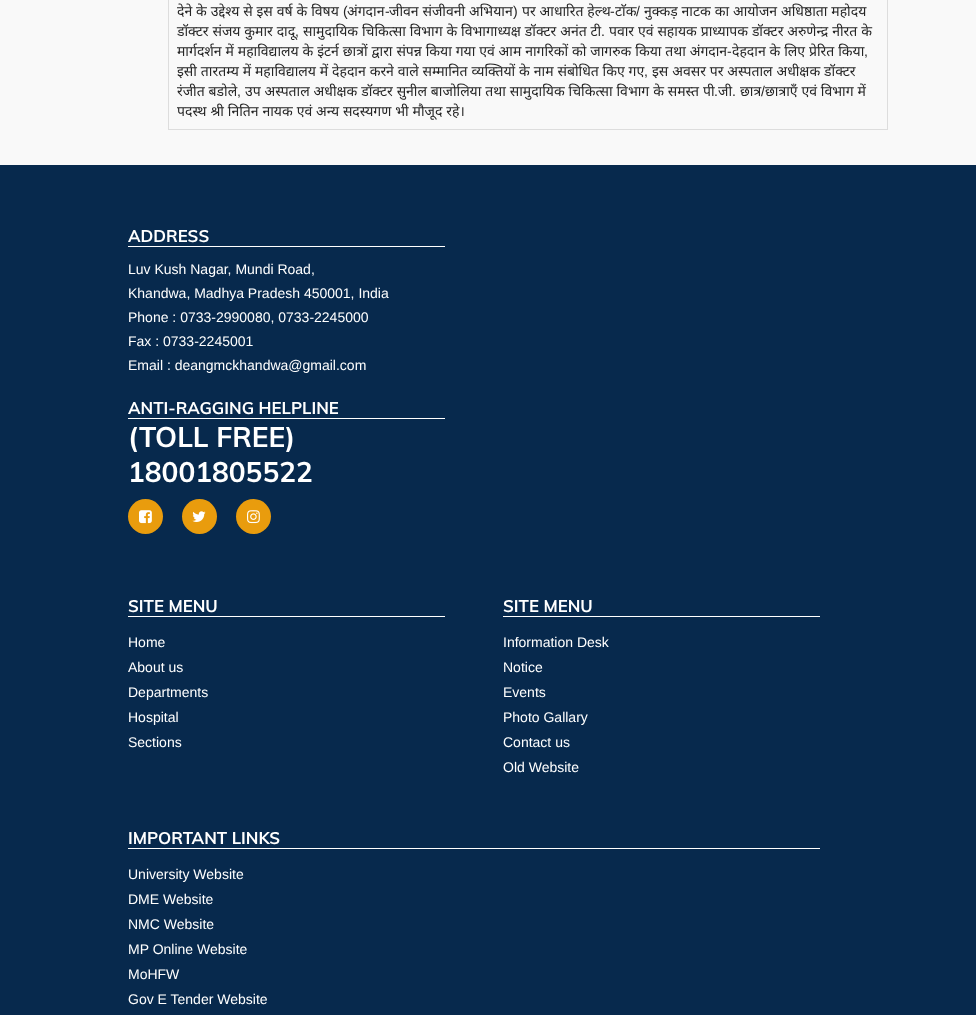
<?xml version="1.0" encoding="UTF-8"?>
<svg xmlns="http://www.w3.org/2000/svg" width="976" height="1015">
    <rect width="100%" height="100%" fill="#F9F9F9"/>
    <rect x="887" y="0" width="1" height="130" fill="#DDDDDD"/>
    <rect x="168" y="129" width="720" height="1" fill="#DDDDDD"/>
    <rect x="168" y="0" width="1" height="130" fill="#DDDDDD"/>
    <text x="177" y="16" word-spacing="0.25" font-family="Noto Sans" font-size="14" fill="#252525">देने के उद्देश्य से इस वर्ष के विषय</text>
    <text x="343" y="16" font-family="Liberation Sans" font-size="14" fill="#252525">(</text>
    <text x="347" y="16" font-family="Noto Sans" font-size="14" fill="#252525">अंगदान</text>
    <text x="385" y="16" font-family="Liberation Sans" font-size="14" fill="#252525">-</text>
    <text x="389" y="16" word-spacing="0.25" font-family="Noto Sans" font-size="14" fill="#252525">जीवन संजीवनी अभियान</text>
    <text x="522" y="16" word-spacing="0.25" font-family="Noto Sans" font-size="14" fill="#252525">पर आधारित हेल्थ</text>
    <text x="610" y="16" font-family="Liberation Sans" font-size="14" fill="#252525">-</text>
    <text x="615" y="16" font-family="Noto Sans" font-size="14" fill="#252525">टाॅक</text>
    <text x="636" y="16" font-family="Liberation Sans" font-size="14" fill="#252525">/</text>
    <text x="644" y="16" word-spacing="0.25" font-family="Noto Sans" font-size="14" fill="#252525">नुक्कड़ नाटक का आयोजन अधिष्ठाता महोदय</text>
    <text x="513" y="16" font-family="Liberation Sans" font-size="14" fill="#252525">)</text>
    <text x="177" y="36" word-spacing="0.25" font-family="Noto Sans" font-size="14" fill="#252525">डॉक्टर संजय कुमार दादू</text>
    <text x="303" y="36" word-spacing="0.25" font-family="Noto Sans" font-size="14" fill="#252525">सामुदायिक चिकित्सा विभाग के विभागाध्यक्ष डॉक्टर अनंत टी</text>
    <text x="609" y="36" word-spacing="0.25" font-family="Noto Sans" font-size="14" fill="#252525">पवार एवं सहायक प्राध्यापक डॉक्टर अरुणेन्द्र नीरत के</text>
    <text x="295" y="36" font-family="Liberation Sans" font-size="14" fill="#252525">,</text>
    <text x="601" y="36" font-family="Liberation Sans" font-size="14" fill="#252525">.</text>
    <text x="177" y="56" word-spacing="0.25" font-family="Noto Sans" font-size="14" fill="#252525">मार्गदर्शन में महाविद्यालय के इंटर्न छात्रों द्वारा संपन्न किया गया एवं आम नागरिकों को जागरुक किया तथा अंगदान</text>
    <text x="727" y="56" font-family="Liberation Sans" font-size="14" fill="#252525">-</text>
    <text x="732" y="56" word-spacing="0.25" font-family="Noto Sans" font-size="14" fill="#252525">देहदान के लिए प्रेरित किया</text>
    <text x="864" y="56" font-family="Liberation Sans" font-size="14" fill="#252525">,</text>
    <text x="177" y="76" word-spacing="0.25" font-family="Noto Sans" font-size="14" fill="#252525">इसी तारतम्य में महाविद्यालय में देहदान करने वाले सम्मानित व्यक्तियों के नाम संबोधित किए गए</text>
    <text x="644" y="76" font-family="Liberation Sans" font-size="14" fill="#252525">,</text>
    <text x="652" y="76" word-spacing="0.25" font-family="Noto Sans" font-size="14" fill="#252525">इस अवसर पर अस्पताल अधीक्षक डॉक्टर</text>
    <text x="177" y="96" word-spacing="0.25" font-family="Noto Sans" font-size="14" fill="#252525">रंजीत बडोले</text>
    <text x="237" y="96" font-family="Liberation Sans" font-size="14" fill="#252525">,</text>
    <text x="245" y="96" word-spacing="0.25" font-family="Noto Sans" font-size="14" fill="#252525">उप अस्पताल अधीक्षक डॉक्टर सुनील बाजोलिया तथा सामुदायिक चिकित्सा विभाग के समस्त पी</text>
    <text x="714" y="96" font-family="Liberation Sans" font-size="14" fill="#252525">.</text>
    <text x="718" y="96" font-family="Noto Sans" font-size="14" fill="#252525">जी</text>
    <text x="740" y="96" font-family="Noto Sans" font-size="14" fill="#252525">छात्र</text>
    <text x="761" y="96" font-family="Liberation Sans" font-size="14" fill="#252525">/</text>
    <text x="765" y="96" word-spacing="0.25" font-family="Noto Sans" font-size="14" fill="#252525">छात्राएँ एवं विभाग में</text>
    <text x="732" y="96" font-family="Liberation Sans" font-size="14" fill="#252525">.</text>
    <text x="177" y="116" word-spacing="0.25" font-family="Noto Sans" font-size="14" fill="#252525">पदस्थ श्री नितिन नायक एवं अन्य सदस्यगण भी मौजूद रहे।</text>
    <rect x="0" y="165" width="976" height="850" fill="#07294D"/>
    <rect x="128" y="246" width="317" height="1" fill="#FFFFFF"/>
    <text x="128" y="242" font-family="Muli" font-size="16.75" font-weight="700" fill="#FFFFFF">ADDRESS</text>
    <text font-family="Liberation Sans" font-size="14" fill="#FFFFFF">
        <tspan x="128" y="274">Luv Kush Nagar, Mundi Road,</tspan>
        <tspan x="128" y="298">Khandwa, Madhya Pradesh 450001, India</tspan>
        <tspan x="128" y="322">Phone : 0733-2990080, 0733-2245000</tspan>
        <tspan x="128" y="346">Fax : 0733-2245001</tspan>
        <tspan x="128" y="370">Email : deangmckhandwa@gmail.com</tspan>
    </text>
    <rect x="128" y="418" width="317" height="1" fill="#FFFFFF"/>
    <text x="128" y="414" font-family="Muli" font-size="16.75" font-weight="700" fill="#FFFFFF">ANTI-RAGGING HELPLINE</text>
    <text font-family="Muli" font-size="28" font-weight="700" fill="#FFFFFF">
        <tspan x="128" y="447">(TOLL FREE)</tspan>
        <tspan x="128" y="482">18001805522</tspan>
    </text>
    <circle cx="145.5" cy="516.5" r="17.5" fill="#E99C0D"/>
    <image x="139" y="510" width="13" height="14" href="img_01.png"/>
    <circle cx="199.5" cy="516.5" r="17.5" fill="#E99C0D"/>
    <image x="192" y="511" width="14" height="11" href="img_02.png"/>
    <circle cx="253.5" cy="516.5" r="17.5" fill="#E99C0D"/>
    <image x="247" y="510" width="13" height="14" href="img_03.png"/>
    <rect x="128" y="616" width="317" height="1" fill="#FFFFFF"/>
    <text x="128" y="612" font-family="Muli" font-size="16.75" font-weight="700" fill="#FFFFFF">SITE MENU</text>
    <text font-family="Liberation Sans" font-size="14" fill="#FFFFFF">
        <tspan x="128" y="647">Home</tspan>
        <tspan x="128" y="672">About us</tspan>
        <tspan x="128" y="697">Departments</tspan>
        <tspan x="128" y="722">Hospital</tspan>
        <tspan x="128" y="747">Sections</tspan>
    </text>
    <rect x="503" y="616" width="317" height="1" fill="#FFFFFF"/>
    <text x="503" y="612" font-family="Muli" font-size="16.75" font-weight="700" fill="#FFFFFF">SITE MENU</text>
    <text font-family="Liberation Sans" font-size="14" fill="#FFFFFF">
        <tspan x="503" y="647">Information Desk</tspan>
        <tspan x="503" y="672">Notice</tspan>
        <tspan x="503" y="697">Events</tspan>
        <tspan x="503" y="722">Photo Gallary</tspan>
        <tspan x="503" y="747">Contact us</tspan>
        <tspan x="503" y="772">Old Website</tspan>
    </text>
    <rect x="128" y="848" width="692" height="1" fill="#FFFFFF"/>
    <text x="128" y="844" font-family="Muli" font-size="16.75" font-weight="700" fill="#FFFFFF">IMPORTANT LINKS</text>
    <text font-family="Liberation Sans" font-size="14" fill="#FFFFFF">
        <tspan x="128" y="879">University Website</tspan>
        <tspan x="128" y="904">DME Website</tspan>
        <tspan x="128" y="929">NMC Website</tspan>
        <tspan x="128" y="954">MP Online Website</tspan>
        <tspan x="128" y="979">MoHFW</tspan>
        <tspan x="128" y="1004">Gov E Tender Website</tspan>
    </text>
</svg>
